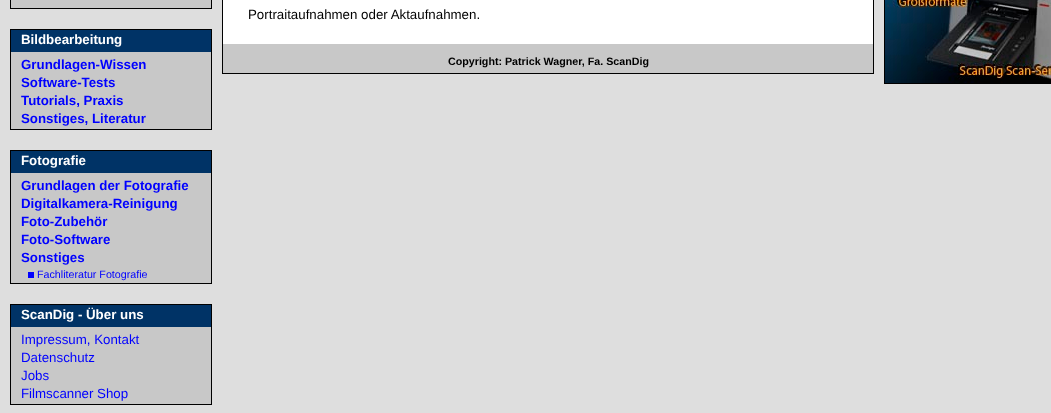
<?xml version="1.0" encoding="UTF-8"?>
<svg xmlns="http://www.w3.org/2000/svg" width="1051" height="413">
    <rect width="100%" height="100%" fill="#DEDEDE"/>
    <rect x="10.5" y="-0.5" width="201" height="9" fill="#C8C8C8" stroke="#000000"/>
    <rect x="11" y="52" width="200" height="77" fill="#C8C8C8"/>
    <rect x="10.5" y="29.5" width="201" height="100" fill="none" stroke="#000000"/>
    <rect x="11" y="30" width="200" height="22" fill="#003366"/>
    <text x="21" y="44" font-family="Liberation Sans" font-size="13.3" font-weight="700" fill="#FFFFFF">Bildbearbeitung</text>
    <text font-family="Liberation Sans" font-size="13.3" font-weight="700" fill="#0000FF">
        <tspan x="21" y="69">Grundlagen-Wissen</tspan>
        <tspan x="21" y="87">Software-Tests</tspan>
        <tspan x="21" y="105">Tutorials, Praxis</tspan>
        <tspan x="21" y="123">Sonstiges, Literatur</tspan>
    </text>
    <rect x="11" y="173" width="200" height="110" fill="#C8C8C8"/>
    <rect x="10.5" y="150.5" width="201" height="133" fill="none" stroke="#000000"/>
    <rect x="11" y="151" width="200" height="22" fill="#003366"/>
    <text x="21" y="165" font-family="Liberation Sans" font-size="13.3" font-weight="700" fill="#FFFFFF">Fotografie</text>
    <text font-family="Liberation Sans" font-size="13.3" font-weight="700" fill="#0000FF">
        <tspan x="21" y="190">Grundlagen der Fotografie</tspan>
        <tspan x="21" y="208">Digitalkamera-Reinigung</tspan>
        <tspan x="21" y="226">Foto-Zubehör</tspan>
        <tspan x="21" y="244">Foto-Software</tspan>
        <tspan x="21" y="262">Sonstiges</tspan>
    </text>
    <text x="37" y="278" font-family="Liberation Sans" font-size="10.7" fill="#0000FF">Fachliteratur Fotografie</text>
    <rect x="28" y="272" width="6" height="6" fill="#0000FF"/>
    <rect x="11" y="327" width="200" height="77" fill="#C8C8C8"/>
    <rect x="10.5" y="304.5" width="201" height="100" fill="none" stroke="#000000"/>
    <rect x="11" y="305" width="200" height="22" fill="#003366"/>
    <text x="21" y="319" font-family="Liberation Sans" font-size="13.3" font-weight="700" fill="#FFFFFF">ScanDig - Über uns</text>
    <text font-family="Liberation Sans" font-size="13.3" fill="#0000FF">
        <tspan x="21" y="344">Impressum, Kontakt</tspan>
        <tspan x="21" y="362">Datenschutz</tspan>
        <tspan x="21" y="380">Jobs</tspan>
        <tspan x="21" y="398">Filmscanner Shop</tspan>
    </text>
    <rect x="223" y="44" width="650" height="29" fill="#C8C8C8"/>
    <rect x="222.5" y="-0.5" width="651" height="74" fill="none" stroke="#000000"/>
    <rect x="223" y="0" width="650" height="44" fill="#FFFFFF"/>
    <text x="248" y="19" font-family="Liberation Sans" font-size="13.3" fill="#000000">Portraitaufnahmen oder Aktaufnahmen.</text>
    <text x="448" y="65" font-family="Liberation Sans" font-size="10.7" font-weight="700" fill="#000000">Copyright: Patrick Wagner, Fa. ScanDig</text>
    <rect x="884.5" y="-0.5" width="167" height="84" fill="none" stroke="#000000"/>
    <image x="885" y="0" width="166" height="83" href="img_01.png"/>
</svg>
